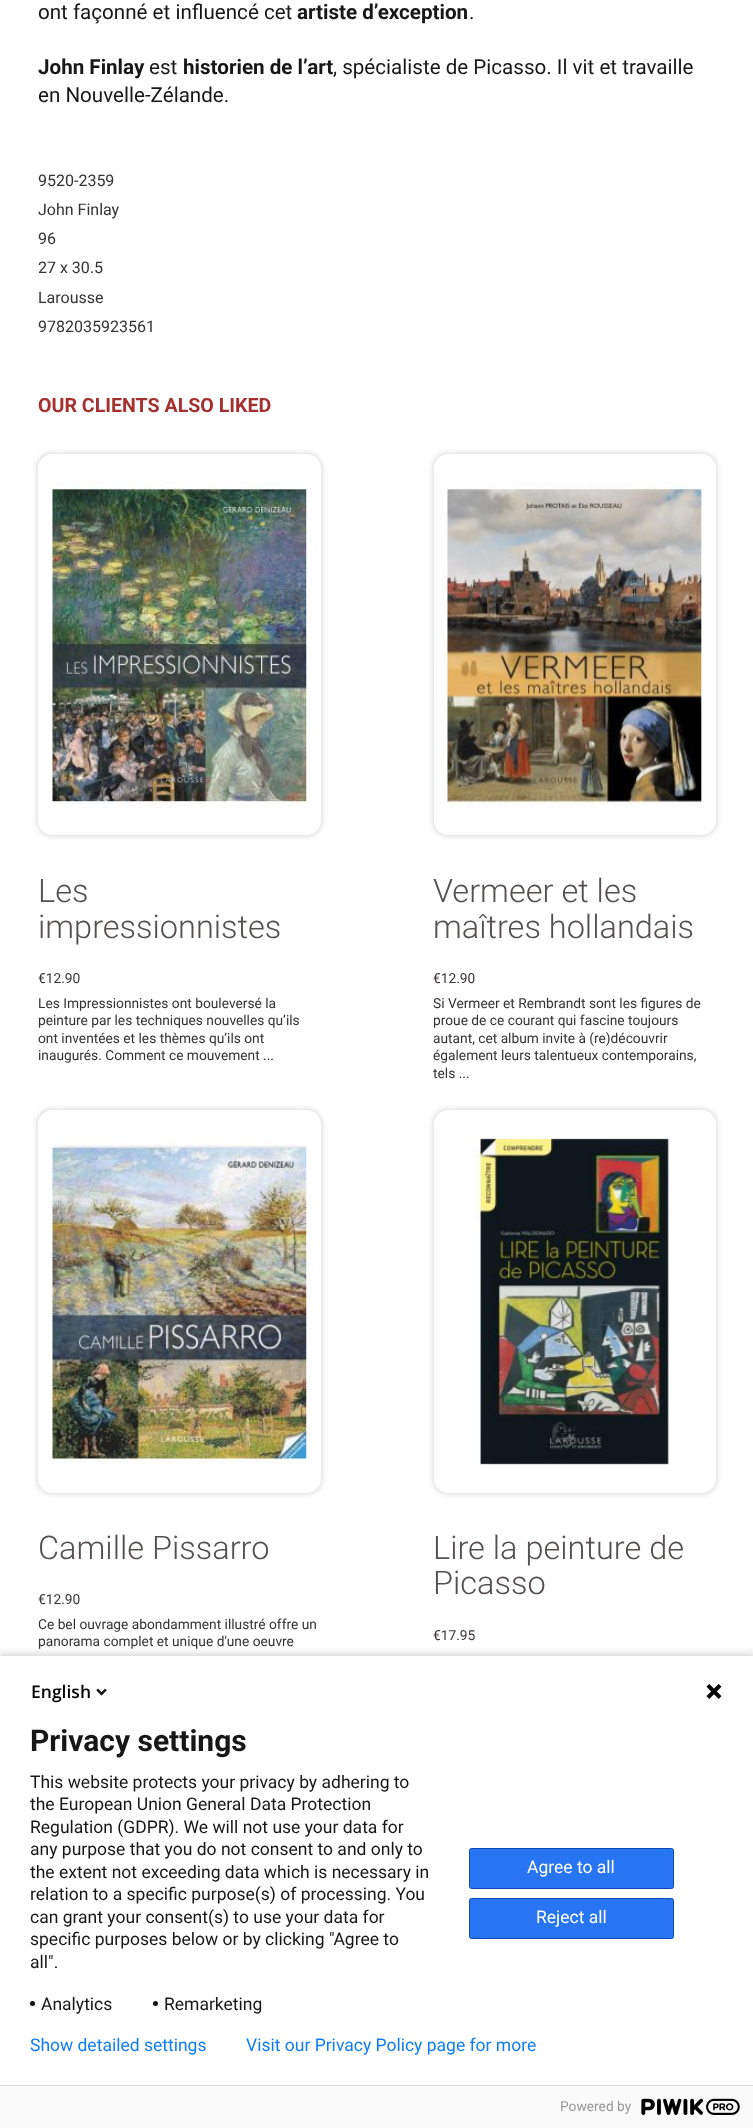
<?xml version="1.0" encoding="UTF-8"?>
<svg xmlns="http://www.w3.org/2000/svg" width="753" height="2128">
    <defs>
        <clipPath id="clip1"><path d="M 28 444 H 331 V 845 H 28 Z M 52 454 H 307 C 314.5 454 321 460.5 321 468 V 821 C 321 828.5 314.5 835 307 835 H 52 C 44.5 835 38 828.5 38 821 V 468 C 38 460.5 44.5 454 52 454 Z" clip-rule="evenodd"/></clipPath>
        <filter id="blur1" x="-50%" y="-200%" width="200%" height="500%"><feGaussianBlur stdDeviation="3"/></filter>
        <clipPath id="clip2"><path d="M 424 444 H 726 V 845 H 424 Z M 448 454 H 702 C 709.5 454 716 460.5 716 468 V 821 C 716 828.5 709.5 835 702 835 H 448 C 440.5 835 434 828.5 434 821 V 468 C 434 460.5 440.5 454 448 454 Z" clip-rule="evenodd"/></clipPath>
        <clipPath id="clip3"><path d="M 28 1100 H 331 V 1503 H 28 Z M 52 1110 H 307 C 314.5 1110 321 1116.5 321 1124 V 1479 C 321 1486.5 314.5 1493 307 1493 H 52 C 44.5 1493 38 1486.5 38 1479 V 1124 C 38 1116.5 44.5 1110 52 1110 Z" clip-rule="evenodd"/></clipPath>
        <clipPath id="clip4"><path d="M 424 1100 H 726 V 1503 H 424 Z M 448 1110 H 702 C 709.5 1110 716 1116.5 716 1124 V 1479 C 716 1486.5 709.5 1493 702 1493 H 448 C 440.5 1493 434 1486.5 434 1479 V 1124 C 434 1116.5 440.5 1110 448 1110 Z" clip-rule="evenodd"/></clipPath>
    </defs>
    <rect width="100%" height="100%" fill="#FFFFFF"/>
    <text x="38" y="19" font-family="Roboto" font-size="20.6" fill="#171717">ont façonné et influencé cet</text>
    <text x="297" y="19" font-family="Roboto" font-size="20.6" font-weight="700" fill="#171717">artiste d’exception</text>
    <text x="469" y="19" font-family="Roboto" font-size="20.6" fill="#171717">.</text>
    <text x="38" y="74" font-family="Roboto" font-size="20.6" font-weight="700" fill="#171717">John Finlay</text>
    <text x="149" y="74" font-family="Roboto" font-size="20.6" fill="#171717">est</text>
    <text x="183" y="74" font-family="Roboto" font-size="20.6" font-weight="700" fill="#171717">historien de l’art</text>
    <text x="333" y="74" font-family="Roboto" font-size="20.6" fill="#171717">, spécialiste de Picasso. Il vit et travaille</text>
    <text x="38" y="102" font-family="Roboto" font-size="20.6" fill="#171717">en Nouvelle-Zélande.</text>
    <text font-family="Roboto" font-size="16" fill="#333333">
        <tspan x="38" y="186">9520-2359</tspan>
        <tspan x="38" y="215">John Finlay</tspan>
        <tspan x="38" y="244">96</tspan>
        <tspan x="38" y="273">27 x 30.5</tspan>
        <tspan x="38" y="303">Larousse</tspan>
        <tspan x="38" y="332">9782035923561</tspan>
    </text>
    <text x="38" y="412" font-family="Roboto" font-size="19.6" font-weight="700" fill="#A53030">OUR CLIENTS ALSO LIKED</text>
    <g clip-path="url(#clip1)">
        <rect x="38" y="454" width="283" height="381" rx="14" fill="#000000" fill-opacity="0.2" filter="url(#blur1)"/>
    </g>
    <image x="52" y="481" width="255" height="327" href="img_01.png"/>
    <text font-family="Roboto" font-size="32.5" font-weight="300" fill="#54504F">
        <tspan x="38" y="902">Les</tspan>
        <tspan x="38" y="938">impressionnistes</tspan>
    </text>
    <text x="38" y="983" font-family="Roboto" font-size="13.75" fill="#3B3438">€12.90</text>
    <text font-family="Roboto" font-size="13.75" fill="#333333">
        <tspan x="38" y="1008">Les Impressionnistes ont bouleversé la</tspan>
        <tspan x="38" y="1025">peinture par les techniques nouvelles qu’ils</tspan>
        <tspan x="38" y="1043">ont inventées et les thèmes qu’ils ont</tspan>
        <tspan x="38" y="1060">inaugurés. Comment ce mouvement ...</tspan>
    </text>
    <g clip-path="url(#clip2)">
        <rect x="434" y="454" width="282" height="381" rx="14" fill="#000000" fill-opacity="0.2" filter="url(#blur1)"/>
    </g>
    <image x="447" y="481" width="255" height="327" href="img_02.png"/>
    <text font-family="Roboto" font-size="32.5" font-weight="300" fill="#54504F">
        <tspan x="433" y="902">Vermeer et les</tspan>
        <tspan x="433" y="938">maîtres hollandais</tspan>
    </text>
    <text x="433" y="983" font-family="Roboto" font-size="13.75" fill="#3B3438">€12.90</text>
    <text font-family="Roboto" font-size="13.75" fill="#333333">
        <tspan x="433" y="1008">Si Vermeer et Rembrandt sont les figures de</tspan>
        <tspan x="433" y="1025">proue de ce courant qui fascine toujours</tspan>
        <tspan x="433" y="1043">autant, cet album invite à (re)découvrir</tspan>
        <tspan x="433" y="1060">également leurs talentueux contemporains,</tspan>
        <tspan x="433" y="1078">tels ...</tspan>
    </text>
    <g clip-path="url(#clip3)">
        <rect x="38" y="1110" width="283" height="383" rx="14" fill="#000000" fill-opacity="0.2" filter="url(#blur1)"/>
    </g>
    <image x="52" y="1139" width="255" height="325" href="img_03.png"/>
    <text x="38" y="1559" font-family="Roboto" font-size="32.5" font-weight="300" fill="#54504F">Camille Pissarro</text>
    <text x="38" y="1604" font-family="Roboto" font-size="13.75" fill="#3B3438">€12.90</text>
    <text font-family="Roboto" font-size="13.75" fill="#333333">
        <tspan x="38" y="1629">Ce bel ouvrage abondamment illustré offre un</tspan>
        <tspan x="38" y="1646">panorama complet et unique d'une oeuvre</tspan>
    </text>
    <g clip-path="url(#clip4)">
        <rect x="434" y="1110" width="282" height="383" rx="14" fill="#000000" fill-opacity="0.2" filter="url(#blur1)"/>
    </g>
    <image x="470" y="1138" width="199" height="327" href="img_04.png"/>
    <text font-family="Roboto" font-size="32.5" font-weight="300" fill="#54504F">
        <tspan x="433" y="1559">Lire la peinture de</tspan>
        <tspan x="433" y="1594">Picasso</tspan>
    </text>
    <text x="433" y="1640" font-family="Roboto" font-size="13.75" fill="#3B3438">€17.95</text>
    <rect x="-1" y="1653" width="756" height="475" fill="#000000" fill-opacity="0.14" filter="url(#blur1)"/>
    <rect x="0" y="1656" width="753" height="429" fill="#FFFFFF"/>
    <text x="31" y="1698" font-family="Open Sans" font-size="17.5" font-weight="600" fill="#000000">English</text>
    <image x="96" y="1688" width="11" height="8" href="img_05.png"/>
    <image x="706" y="1684" width="16" height="15" href="img_06.png"/>
    <text x="30" y="1751" font-family="Roboto" font-size="30" font-weight="700" fill="#171717">Privacy settings</text>
    <text font-family="Roboto" font-size="17.5" fill="#171717">
        <tspan x="30" y="1788">This website protects your privacy by adhering to</tspan>
        <tspan x="30" y="1810">the European Union General Data Protection</tspan>
        <tspan x="30" y="1833">Regulation (GDPR). We will not use your data for</tspan>
        <tspan x="30" y="1855">any purpose that you do not consent to and only to</tspan>
        <tspan x="30" y="1878">the extent not exceeding data which is necessary in</tspan>
        <tspan x="30" y="1900">relation to a specific purpose(s) of processing. You</tspan>
        <tspan x="30" y="1923">can grant your consent(s) to use your data for</tspan>
        <tspan x="30" y="1945">specific purposes below or by clicking "Agree to</tspan>
        <tspan x="30" y="1968">all".</tspan>
    </text>
    <circle cx="32.5" cy="2003.5" r="2.5" fill="#131313"/>
    <text x="41" y="2010" font-family="Roboto" font-size="17.5" fill="#171717">Analytics</text>
    <circle cx="155.5" cy="2003.5" r="2.5" fill="#131313"/>
    <text x="164" y="2010" font-family="Roboto" font-size="17.5" fill="#171717">Remarketing</text>
    <rect x="469.5" y="1848.5" width="204" height="40" rx="2" fill="#2775F2" stroke="#0B4BB3"/>
    <text x="527" y="1873" font-family="Roboto" font-size="17.5" fill="#FFFFFF">Agree to all</text>
    <rect x="469.5" y="1898.5" width="204" height="40" rx="2" fill="#2775F2" stroke="#0B4BB3"/>
    <text x="536" y="1923" font-family="Roboto" font-size="17.5" fill="#FFFFFF">Reject all</text>
    <text x="30" y="2051" font-family="Roboto" font-size="17.5" fill="#107EF1">Show detailed settings</text>
    <text x="246" y="2051" font-family="Roboto" font-size="17.5" fill="#107EF1">Visit our Privacy Policy page for more</text>
    <rect x="0" y="2086" width="753" height="42" fill="#FAFAFA"/>
    <rect x="0" y="2085" width="753" height="1" fill="#DDDDDD"/>
    <text x="560" y="2111" font-family="Roboto" font-size="13.75" fill="#999999">Powered by</text>
    <image x="641" y="2098" width="99" height="17" href="img_07.png"/>
</svg>
